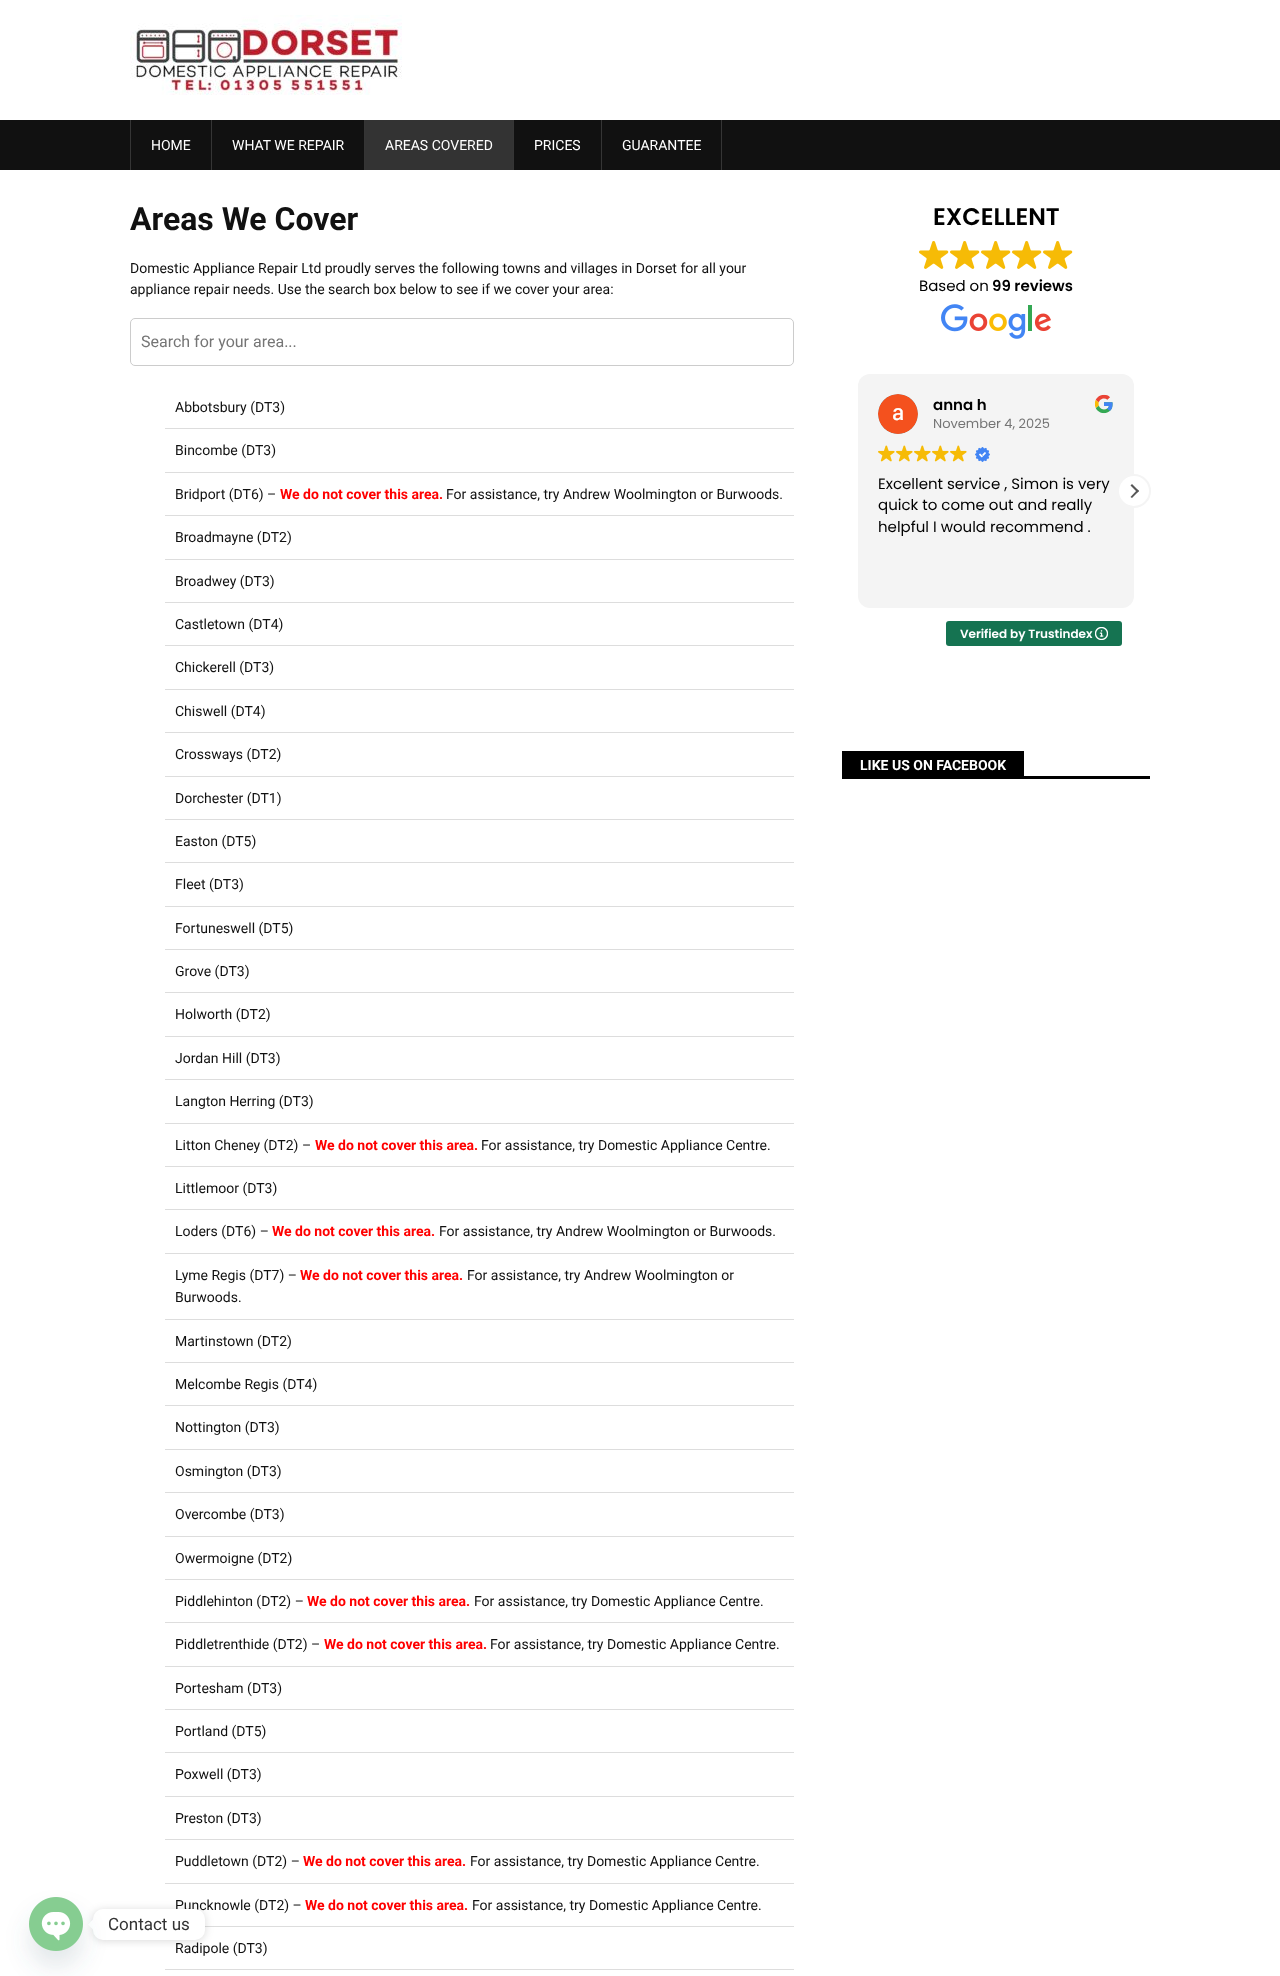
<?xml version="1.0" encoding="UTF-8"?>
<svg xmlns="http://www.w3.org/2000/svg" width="1280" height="1976">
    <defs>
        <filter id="blur1" x="-50%" y="-200%" width="200%" height="500%"><feGaussianBlur stdDeviation="4"/></filter>
        <filter id="blur2" x="-50%" y="-200%" width="200%" height="500%"><feGaussianBlur stdDeviation="12"/></filter>
    </defs>
    <rect width="100%" height="100%" fill="#FFFFFF"/>
    <image x="130" y="15" width="272" height="80" href="img_01.png"/>
    <rect x="0" y="120" width="1280" height="50" fill="#111111"/>
    <rect x="130" y="120" width="1" height="50" fill="#353535"/>
    <text x="151" y="150" font-family="Roboto" font-size="14" fill="#FFFFFF">HOME</text>
    <rect x="211" y="120" width="1" height="50" fill="#353535"/>
    <text x="232" y="150" font-family="Roboto" font-size="14" fill="#FFFFFF">WHAT WE REPAIR</text>
    <rect x="364" y="120" width="1" height="50" fill="#353535"/>
    <rect x="365" y="120" width="148" height="50" fill="#333333"/>
    <text x="385" y="150" font-family="Roboto" font-size="14" fill="#FFFFFF">AREAS COVERED</text>
    <rect x="513" y="120" width="1" height="50" fill="#353535"/>
    <text x="534" y="150" font-family="Roboto" font-size="14" fill="#FFFFFF">PRICES</text>
    <rect x="721" y="120" width="1" height="50" fill="#353535"/>
    <rect x="601" y="120" width="1" height="50" fill="#353535"/>
    <text x="622" y="150" font-family="Roboto" font-size="14" fill="#FFFFFF">GUARANTEE</text>
    <text x="130" y="230" font-family="Roboto" font-size="32" font-weight="700" fill="#111111">Areas We Cover</text>
    <text font-family="Roboto" font-size="14" fill="#111111">
        <tspan x="130" y="273">Domestic Appliance Repair Ltd proudly serves the following towns and villages in Dorset for all your</tspan>
        <tspan x="130" y="294">appliance repair needs. Use the search box below to see if we cover your area:</tspan>
    </text>
    <rect x="130.5" y="318.5" width="663" height="47" rx="4.5" fill="none" stroke="#CCCCCC"/>
    <text x="141" y="347" font-family="Roboto" font-size="16" fill="#757575">Search for your area...</text>
    <rect x="165" y="428" width="629" height="1" fill="#DDDDDD"/>
    <text x="175" y="412" font-family="Roboto" font-size="14" fill="#111111">Abbotsbury (DT3)</text>
    <rect x="165" y="472" width="629" height="1" fill="#DDDDDD"/>
    <text x="175" y="455" font-family="Roboto" font-size="14" fill="#111111">Bincombe (DT3)</text>
    <rect x="165" y="515" width="629" height="1" fill="#DDDDDD"/>
    <text x="175" y="499" font-family="Roboto" font-size="14" fill="#111111">Bridport (DT6) –</text>
    <text x="280" y="499" font-family="Roboto" font-size="14" font-weight="700" fill="#FF0000">We do not cover this area.</text>
    <text x="446" y="499" font-family="Roboto" font-size="14" fill="#111111">For assistance, try Andrew Woolmington or Burwoods.</text>
    <rect x="165" y="559" width="629" height="1" fill="#DDDDDD"/>
    <text x="175" y="542" font-family="Roboto" font-size="14" fill="#111111">Broadmayne (DT2)</text>
    <rect x="165" y="602" width="629" height="1" fill="#DDDDDD"/>
    <text x="175" y="586" font-family="Roboto" font-size="14" fill="#111111">Broadwey (DT3)</text>
    <rect x="165" y="645" width="629" height="1" fill="#DDDDDD"/>
    <text x="175" y="629" font-family="Roboto" font-size="14" fill="#111111">Castletown (DT4)</text>
    <rect x="165" y="689" width="629" height="1" fill="#DDDDDD"/>
    <text x="175" y="672" font-family="Roboto" font-size="14" fill="#111111">Chickerell (DT3)</text>
    <rect x="165" y="732" width="629" height="1" fill="#DDDDDD"/>
    <text x="175" y="716" font-family="Roboto" font-size="14" fill="#111111">Chiswell (DT4)</text>
    <rect x="165" y="776" width="629" height="1" fill="#DDDDDD"/>
    <text x="175" y="759" font-family="Roboto" font-size="14" fill="#111111">Crossways (DT2)</text>
    <rect x="165" y="819" width="629" height="1" fill="#DDDDDD"/>
    <text x="175" y="803" font-family="Roboto" font-size="14" fill="#111111">Dorchester (DT1)</text>
    <rect x="165" y="862" width="629" height="1" fill="#DDDDDD"/>
    <text x="175" y="846" font-family="Roboto" font-size="14" fill="#111111">Easton (DT5)</text>
    <rect x="165" y="906" width="629" height="1" fill="#DDDDDD"/>
    <text x="175" y="889" font-family="Roboto" font-size="14" fill="#111111">Fleet (DT3)</text>
    <rect x="165" y="949" width="629" height="1" fill="#DDDDDD"/>
    <text x="175" y="933" font-family="Roboto" font-size="14" fill="#111111">Fortuneswell (DT5)</text>
    <rect x="165" y="992" width="629" height="1" fill="#DDDDDD"/>
    <text x="175" y="976" font-family="Roboto" font-size="14" fill="#111111">Grove (DT3)</text>
    <rect x="165" y="1036" width="629" height="1" fill="#DDDDDD"/>
    <text x="175" y="1019" font-family="Roboto" font-size="14" fill="#111111">Holworth (DT2)</text>
    <rect x="165" y="1079" width="629" height="1" fill="#DDDDDD"/>
    <text x="175" y="1063" font-family="Roboto" font-size="14" fill="#111111">Jordan Hill (DT3)</text>
    <rect x="165" y="1123" width="629" height="1" fill="#DDDDDD"/>
    <text x="175" y="1106" font-family="Roboto" font-size="14" fill="#111111">Langton Herring (DT3)</text>
    <rect x="165" y="1166" width="629" height="1" fill="#DDDDDD"/>
    <text x="175" y="1150" font-family="Roboto" font-size="14" fill="#111111">Litton Cheney (DT2) –</text>
    <text x="315" y="1150" font-family="Roboto" font-size="14" font-weight="700" fill="#FF0000">We do not cover this area.</text>
    <text x="481" y="1150" font-family="Roboto" font-size="14" fill="#111111">For assistance, try Domestic Appliance Centre.</text>
    <rect x="165" y="1209" width="629" height="1" fill="#DDDDDD"/>
    <text x="175" y="1193" font-family="Roboto" font-size="14" fill="#111111">Littlemoor (DT3)</text>
    <rect x="165" y="1253" width="629" height="1" fill="#DDDDDD"/>
    <text x="175" y="1236" font-family="Roboto" font-size="14" fill="#111111">Loders (DT6) –</text>
    <text x="272" y="1236" font-family="Roboto" font-size="14" font-weight="700" fill="#FF0000">We do not cover this area.</text>
    <text x="439" y="1236" font-family="Roboto" font-size="14" fill="#111111">For assistance, try Andrew Woolmington or Burwoods.</text>
    <rect x="165" y="1319" width="629" height="1" fill="#DDDDDD"/>
    <text x="175" y="1280" font-family="Roboto" font-size="14" fill="#111111">Lyme Regis (DT7) –</text>
    <text x="300" y="1280" font-family="Roboto" font-size="14" font-weight="700" fill="#FF0000">We do not cover this area.</text>
    <text x="467" y="1280" font-family="Roboto" font-size="14" fill="#111111">For assistance, try Andrew Woolmington or</text>
    <text x="175" y="1302" font-family="Roboto" font-size="14" fill="#111111">Burwoods.</text>
    <rect x="165" y="1362" width="629" height="1" fill="#DDDDDD"/>
    <text x="175" y="1346" font-family="Roboto" font-size="14" fill="#111111">Martinstown (DT2)</text>
    <rect x="165" y="1405" width="629" height="1" fill="#DDDDDD"/>
    <text x="175" y="1389" font-family="Roboto" font-size="14" fill="#111111">Melcombe Regis (DT4)</text>
    <rect x="165" y="1449" width="629" height="1" fill="#DDDDDD"/>
    <text x="175" y="1432" font-family="Roboto" font-size="14" fill="#111111">Nottington (DT3)</text>
    <rect x="165" y="1492" width="629" height="1" fill="#DDDDDD"/>
    <text x="175" y="1476" font-family="Roboto" font-size="14" fill="#111111">Osmington (DT3)</text>
    <rect x="165" y="1536" width="629" height="1" fill="#DDDDDD"/>
    <text x="175" y="1519" font-family="Roboto" font-size="14" fill="#111111">Overcombe (DT3)</text>
    <rect x="165" y="1579" width="629" height="1" fill="#DDDDDD"/>
    <text x="175" y="1563" font-family="Roboto" font-size="14" fill="#111111">Owermoigne (DT2)</text>
    <rect x="165" y="1622" width="629" height="1" fill="#DDDDDD"/>
    <text x="175" y="1606" font-family="Roboto" font-size="14" fill="#111111">Piddlehinton (DT2) –</text>
    <text x="307" y="1606" font-family="Roboto" font-size="14" font-weight="700" fill="#FF0000">We do not cover this area.</text>
    <text x="474" y="1606" font-family="Roboto" font-size="14" fill="#111111">For assistance, try Domestic Appliance Centre.</text>
    <rect x="165" y="1666" width="629" height="1" fill="#DDDDDD"/>
    <text x="175" y="1649" font-family="Roboto" font-size="14" fill="#111111">Piddletrenthide (DT2) –</text>
    <text x="324" y="1649" font-family="Roboto" font-size="14" font-weight="700" fill="#FF0000">We do not cover this area.</text>
    <text x="490" y="1649" font-family="Roboto" font-size="14" fill="#111111">For assistance, try Domestic Appliance Centre.</text>
    <rect x="165" y="1709" width="629" height="1" fill="#DDDDDD"/>
    <text x="175" y="1693" font-family="Roboto" font-size="14" fill="#111111">Portesham (DT3)</text>
    <rect x="165" y="1752" width="629" height="1" fill="#DDDDDD"/>
    <text x="175" y="1736" font-family="Roboto" font-size="14" fill="#111111">Portland (DT5)</text>
    <rect x="165" y="1796" width="629" height="1" fill="#DDDDDD"/>
    <text x="175" y="1779" font-family="Roboto" font-size="14" fill="#111111">Poxwell (DT3)</text>
    <rect x="165" y="1839" width="629" height="1" fill="#DDDDDD"/>
    <text x="175" y="1823" font-family="Roboto" font-size="14" fill="#111111">Preston (DT3)</text>
    <rect x="165" y="1883" width="629" height="1" fill="#DDDDDD"/>
    <text x="175" y="1866" font-family="Roboto" font-size="14" fill="#111111">Puddletown (DT2) –</text>
    <text x="303" y="1866" font-family="Roboto" font-size="14" font-weight="700" fill="#FF0000">We do not cover this area.</text>
    <text x="470" y="1866" font-family="Roboto" font-size="14" fill="#111111">For assistance, try Domestic Appliance Centre.</text>
    <rect x="205" y="1926" width="589" height="1" fill="#DDDDDD"/>
    <text x="175" y="1910" font-family="Roboto" font-size="14" fill="#111111">Puncknowle (DT2) –</text>
    <text x="305" y="1910" font-family="Roboto" font-size="14" font-weight="700" fill="#FF0000">We do not cover this area.</text>
    <text x="472" y="1910" font-family="Roboto" font-size="14" fill="#111111">For assistance, try Domestic Appliance Centre.</text>
    <rect x="165" y="1969" width="629" height="1" fill="#DDDDDD"/>
    <text x="175" y="1953" font-family="Roboto" font-size="14" fill="#111111">Radipole (DT3)</text>
    <text x="933" y="225" font-family="Poppins" font-size="24" font-weight="600" fill="#000000">EXCELLENT</text>
    <image x="919" y="241" width="30" height="28" href="img_02.png"/>
    <image x="950" y="241" width="30" height="28" href="img_02.png"/>
    <image x="981" y="241" width="30" height="28" href="img_02.png"/>
    <image x="1012" y="241" width="30" height="28" href="img_02.png"/>
    <image x="1043" y="241" width="30" height="28" href="img_02.png"/>
    <text x="919" y="291" font-family="Poppins" font-size="15" fill="#000000">Based on</text>
    <text x="992" y="291" font-family="Poppins" font-size="15" font-weight="600" fill="#000000">99 reviews</text>
    <image x="941" y="304" width="110" height="35" href="img_03.png"/>
    <rect x="858" y="374" width="276" height="234" rx="12" fill="#F4F4F4"/>
    <image x="878" y="394" width="40" height="40" href="img_04.png"/>
    <text x="933" y="410" font-family="Poppins" font-size="15" font-weight="600" fill="#000000">anna h</text>
    <text x="933" y="428" font-family="Poppins" font-size="13" fill="#757575">November 4, 2025</text>
    <image x="1094" y="394" width="19" height="20" href="img_05.png"/>
    <image x="878" y="445" width="17" height="17" href="img_06.png"/>
    <image x="896" y="445" width="17" height="17" href="img_06.png"/>
    <image x="914" y="445" width="17" height="17" href="img_06.png"/>
    <image x="932" y="445" width="17" height="17" href="img_06.png"/>
    <image x="950" y="445" width="17" height="17" href="img_06.png"/>
    <image x="975" y="447" width="15" height="15" href="img_07.png"/>
    <text font-family="Poppins" font-size="15" fill="#000000">
        <tspan x="878" y="489">Excellent service , Simon is very</tspan>
        <tspan x="878" y="510">quick to come out and really</tspan>
        <tspan x="878" y="532">helpful I would recommend .</tspan>
    </text>
    <circle cx="1134" cy="491" r="16" fill="#FFFFFF" stroke="#F4F4F4" stroke-width="2"/>
    <path d="M 1137.5 492.5 L 1130.5 485.5 L 1132 484 L 1139 491 Z" fill="#575757"/>
    <path d="M 1132 498 L 1130.5 497 L 1137.5 489.5 L 1139 491 Z" fill="#575757"/>
    <rect x="946" y="621" width="176" height="25" rx="3" fill="#157351"/>
    <text x="960" y="638" font-family="Poppins" font-size="12" font-weight="600" fill="#FFFFFF">Verified by Trustindex</text>
    <image x="1095" y="627" width="13" height="13" href="img_08.png"/>
    <rect x="842" y="751" width="182" height="25" fill="#000000"/>
    <text x="860" y="770" font-family="Roboto" font-size="14" font-weight="700" fill="#FFFFFF">LIKE US ON FACEBOOK</text>
    <rect x="842" y="776" width="308" height="3" fill="#000000"/>
    <rect x="93" y="1910" width="112" height="31" rx="10" fill="#000000" fill-opacity="0.15" filter="url(#blur1)"/>
    <rect x="93" y="1909" width="112" height="31" rx="10" fill="#FFFFFF"/>
    <path d="M 93 1919.5 V 1929.5 L 88 1924.5 Z" fill="#FFFFFF"/>
    <rect x="29" y="1913" width="54" height="54" rx="27" fill="#49687E" fill-opacity="0.16" filter="url(#blur2)"/>
    <image x="29" y="1897" width="54" height="54" href="img_09.png"/>
    <text x="108" y="1930" font-family="Roboto" font-size="17" fill="#333333">Contact us</text>
</svg>
